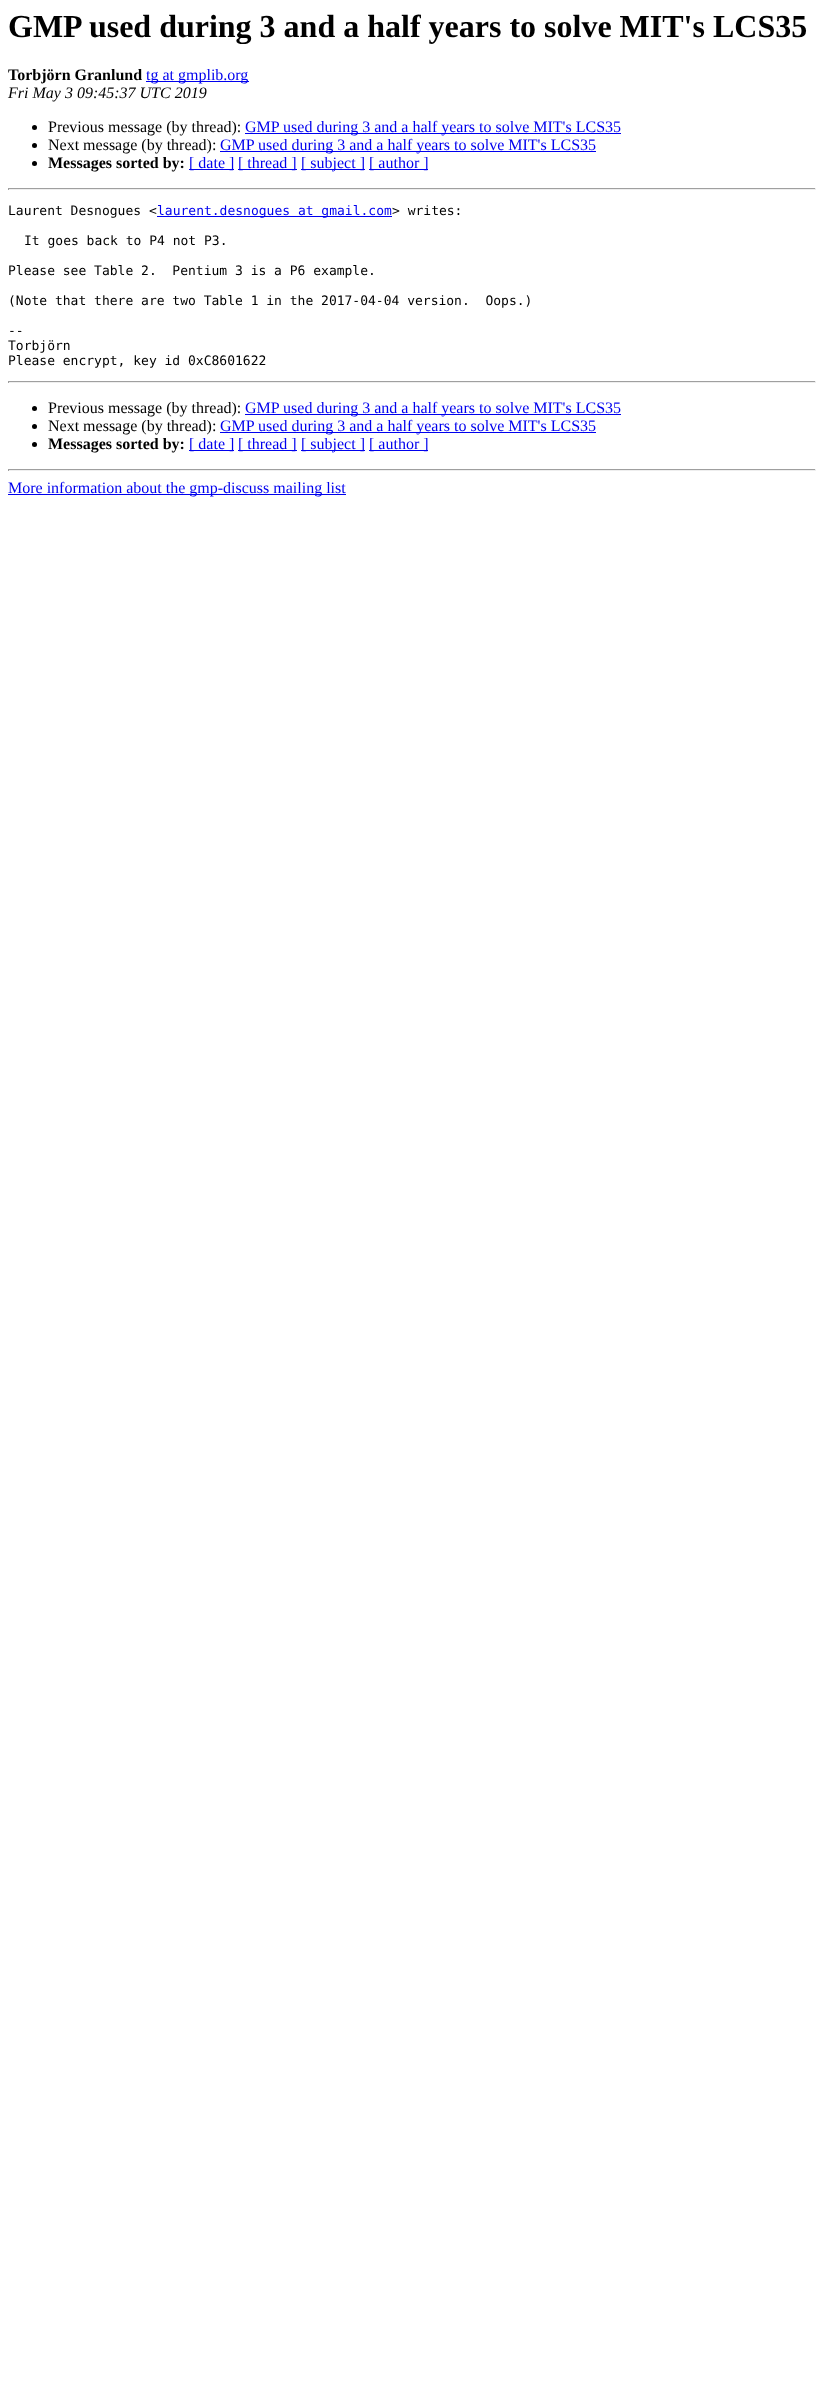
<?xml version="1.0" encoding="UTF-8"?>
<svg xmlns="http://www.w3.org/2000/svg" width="824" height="2389">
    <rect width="100%" height="100%" fill="#FFFFFF"/>
    <text x="8" y="37" font-family="Liberation Serif" font-size="32" font-weight="700" fill="#000000">GMP used during 3 and a half years to solve MIT's LCS35</text>
    <text x="8" y="80" font-family="Liberation Serif" font-size="16" font-weight="700" fill="#000000">Torbjörn Granlund</text>
    <rect x="146" y="81" width="103" height="1" fill="#0000EE"/>
    <text x="146" y="80" font-family="Liberation Serif" font-size="16" fill="#0000EE">tg at gmplib.org</text>
    <text x="8" y="98" font-family="Liberation Serif" font-size="16" font-style="italic" fill="#000000">Fri May 3 09:45:37 UTC 2019</text>
    <circle cx="34.5" cy="127.5" r="2.5" fill="#000000"/>
    <text x="48" y="132" font-family="Liberation Serif" font-size="16" fill="#000000">Previous message (by thread):</text>
    <rect x="245" y="133" width="376" height="1" fill="#0000EE"/>
    <text x="245" y="132" font-family="Liberation Serif" font-size="16" fill="#0000EE">GMP used during 3 and a half years to solve MIT's LCS35</text>
    <circle cx="34.5" cy="145.5" r="2.5" fill="#000000"/>
    <text x="48" y="150" font-family="Liberation Serif" font-size="16" fill="#000000">Next message (by thread):</text>
    <rect x="220" y="151" width="376" height="1" fill="#0000EE"/>
    <text x="220" y="150" font-family="Liberation Serif" font-size="16" fill="#0000EE">GMP used during 3 and a half years to solve MIT's LCS35</text>
    <circle cx="34.5" cy="163.5" r="2.5" fill="#000000"/>
    <text x="48" y="168" font-family="Liberation Serif" font-size="16" font-weight="700" fill="#000000">Messages sorted by:</text>
    <rect x="189" y="169" width="45" height="1" fill="#0000EE"/>
    <text x="189" y="168" font-family="Liberation Serif" font-size="16" fill="#0000EE">[ date ]</text>
    <rect x="238" y="169" width="59" height="1" fill="#0000EE"/>
    <text x="238" y="168" font-family="Liberation Serif" font-size="16" fill="#0000EE">[ thread ]</text>
    <rect x="301" y="169" width="64" height="1" fill="#0000EE"/>
    <text x="301" y="168" font-family="Liberation Serif" font-size="16" fill="#0000EE">[ subject ]</text>
    <rect x="369" y="169" width="59" height="1" fill="#0000EE"/>
    <text x="369" y="168" font-family="Liberation Serif" font-size="16" fill="#0000EE">[ author ]</text>
    <rect x="8" y="188" width="808" height="1" fill="#9F9F9F"/>
    <rect x="815" y="188" width="1" height="2" fill="#EEEEEE"/>
    <rect x="8" y="189" width="808" height="1" fill="#EEEEEE"/>
    <rect x="8" y="188" width="1" height="2" fill="#9F9F9F"/>
    <text x="8" y="215" font-family="DejaVu Sans Mono" font-size="13" fill="#000000">Laurent Desnogues &lt;</text>
    <rect x="157" y="216" width="235" height="1" fill="#0000EE"/>
    <text x="157" y="215" font-family="DejaVu Sans Mono" font-size="13" fill="#0000EE">laurent.desnogues at gmail.com</text>
    <text x="392" y="215" font-family="DejaVu Sans Mono" font-size="13" fill="#000000">&gt; writes:</text>
    <text x="24" y="245" font-family="DejaVu Sans Mono" font-size="13" fill="#000000">It goes back to P4 not P3.</text>
    <text x="8" y="275" font-family="DejaVu Sans Mono" font-size="13" fill="#000000" xml:space="preserve">Please see Table 2.  Pentium 3 is a P6 example.</text>
    <text x="8" y="305" font-family="DejaVu Sans Mono" font-size="13" fill="#000000" xml:space="preserve">(Note that there are two Table 1 in the 2017-04-04 version.  Oops.)</text>
    <text font-family="DejaVu Sans Mono" font-size="13" fill="#000000">
        <tspan x="8" y="335">--</tspan>
        <tspan x="8" y="350">Torbjörn</tspan>
        <tspan x="8" y="365">Please encrypt, key id 0xC8601622</tspan>
    </text>
    <rect x="8" y="381" width="808" height="1" fill="#9F9F9F"/>
    <rect x="815" y="381" width="1" height="2" fill="#EEEEEE"/>
    <rect x="8" y="382" width="808" height="1" fill="#EEEEEE"/>
    <rect x="8" y="381" width="1" height="2" fill="#9F9F9F"/>
    <circle cx="34.5" cy="408.5" r="2.5" fill="#000000"/>
    <text x="48" y="413" font-family="Liberation Serif" font-size="16" fill="#000000">Previous message (by thread):</text>
    <rect x="245" y="414" width="376" height="1" fill="#0000EE"/>
    <text x="245" y="413" font-family="Liberation Serif" font-size="16" fill="#0000EE">GMP used during 3 and a half years to solve MIT's LCS35</text>
    <circle cx="34.5" cy="426.5" r="2.5" fill="#000000"/>
    <text x="48" y="431" font-family="Liberation Serif" font-size="16" fill="#000000">Next message (by thread):</text>
    <rect x="220" y="432" width="376" height="1" fill="#0000EE"/>
    <text x="220" y="431" font-family="Liberation Serif" font-size="16" fill="#0000EE">GMP used during 3 and a half years to solve MIT's LCS35</text>
    <circle cx="34.5" cy="444.5" r="2.5" fill="#000000"/>
    <text x="48" y="449" font-family="Liberation Serif" font-size="16" font-weight="700" fill="#000000">Messages sorted by:</text>
    <rect x="189" y="450" width="45" height="1" fill="#0000EE"/>
    <text x="189" y="449" font-family="Liberation Serif" font-size="16" fill="#0000EE">[ date ]</text>
    <rect x="238" y="450" width="59" height="1" fill="#0000EE"/>
    <text x="238" y="449" font-family="Liberation Serif" font-size="16" fill="#0000EE">[ thread ]</text>
    <rect x="301" y="450" width="64" height="1" fill="#0000EE"/>
    <text x="301" y="449" font-family="Liberation Serif" font-size="16" fill="#0000EE">[ subject ]</text>
    <rect x="369" y="450" width="59" height="1" fill="#0000EE"/>
    <text x="369" y="449" font-family="Liberation Serif" font-size="16" fill="#0000EE">[ author ]</text>
    <rect x="8" y="469" width="808" height="1" fill="#9F9F9F"/>
    <rect x="815" y="469" width="1" height="2" fill="#EEEEEE"/>
    <rect x="8" y="470" width="808" height="1" fill="#EEEEEE"/>
    <rect x="8" y="469" width="1" height="2" fill="#9F9F9F"/>
    <rect x="8" y="494" width="338" height="1" fill="#0000EE"/>
    <text x="8" y="493" font-family="Liberation Serif" font-size="16" fill="#0000EE">More information about the gmp-discuss mailing list</text>
</svg>
